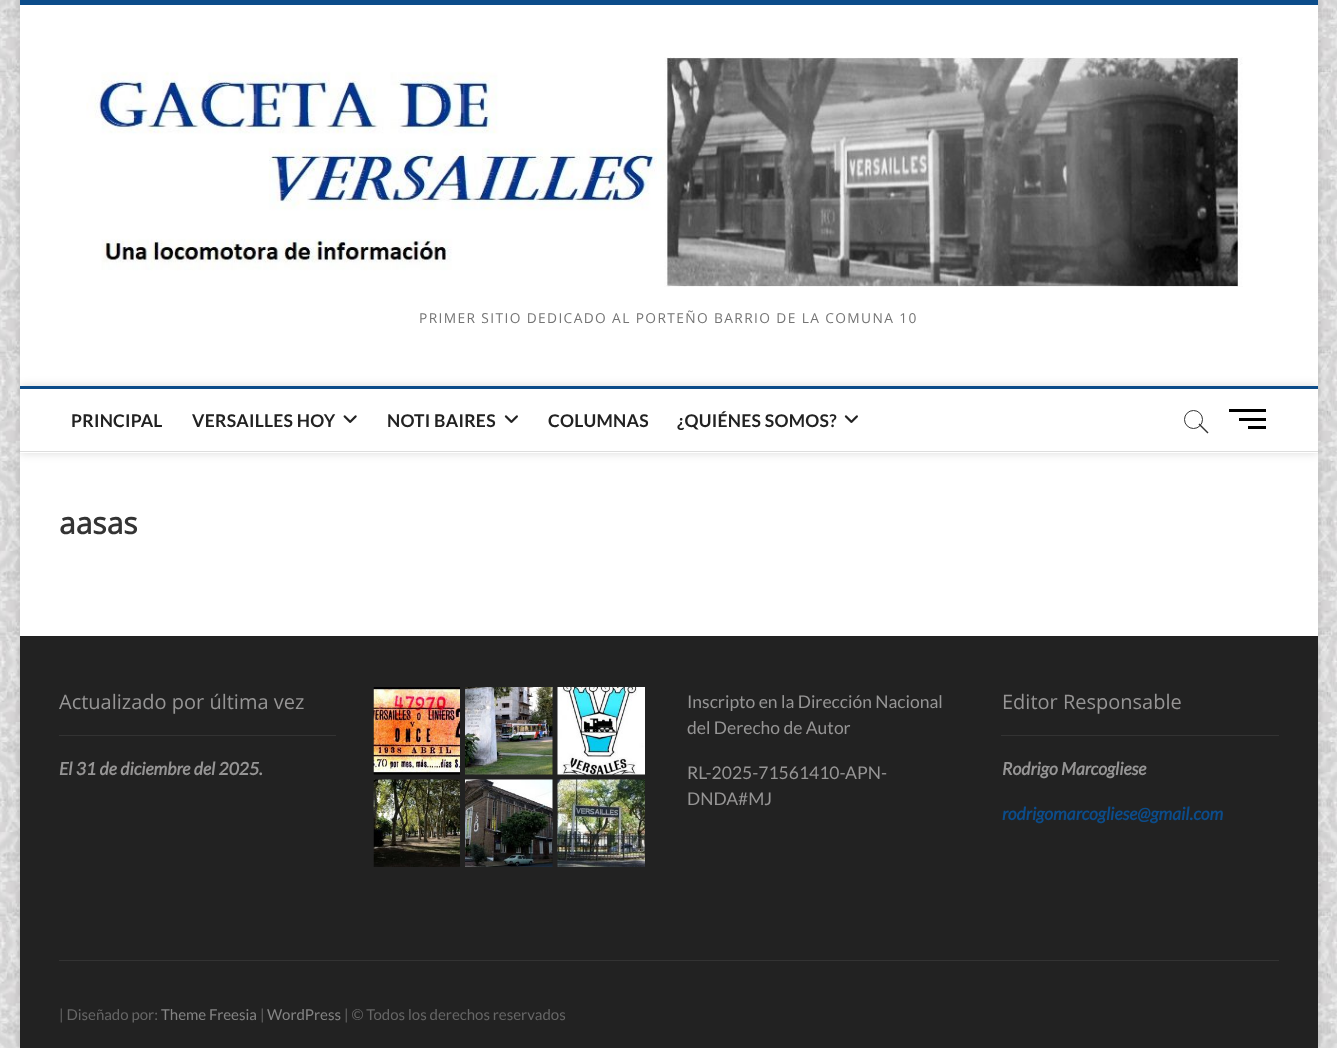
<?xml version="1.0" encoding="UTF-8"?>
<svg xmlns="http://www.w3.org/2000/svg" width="1337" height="1048">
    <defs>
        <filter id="blur1" x="-50%" y="-200%" width="200%" height="500%"><feGaussianBlur stdDeviation="4"/></filter>
        <clipPath id="clip1"><rect x="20" y="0" width="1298" height="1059"/></clipPath>
        <clipPath id="clip2"><path d="M 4 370 H 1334 V 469 H 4 Z M 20 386 H 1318 V 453 H 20 Z" clip-rule="evenodd"/></clipPath>
        <filter id="blur2" x="-50%" y="-200%" width="200%" height="500%"><feGaussianBlur stdDeviation="5"/></filter>
    </defs>
    <rect width="100%" height="100%" fill="#FFFFFF"/>
    <image x="0" y="0" width="1337" height="1048" href="img_01.png"/>
    <rect x="20" y="-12" width="1298" height="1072" fill="#000000" fill-opacity="0.15" filter="url(#blur1)"/>
    <rect x="20" y="5" width="1298" height="631" fill="#FFFFFF"/>
    <rect x="20" y="0" width="1298" height="5" fill="#0C4C8A"/>
    <image x="86" y="57" width="1157" height="230" href="img_02.png"/>
    <text x="419" y="323" font-family="Open Sans" font-size="13.75" letter-spacing="1.38" fill="#747474">PRIMER SITIO DEDICADO AL PORTEÑO BARRIO DE LA COMUNA 10</text>
    <g clip-path="url(#clip1)">
        <g clip-path="url(#clip2)">
            <rect x="20" y="386" width="1298" height="67" fill="#000000" fill-opacity="0.15" filter="url(#blur2)"/>
        </g>
    </g>
    <rect x="20" y="386" width="1298" height="3" fill="#0C4C8A"/>
    <rect x="20" y="451" width="1298" height="1" fill="#DDDDDD"/>
    <text x="71" y="427" font-family="Lato" font-size="17.5" font-weight="700" letter-spacing="0.25" fill="#222222">PRINCIPAL</text>
    <text x="192" y="427" font-family="Lato" font-size="17.5" font-weight="700" letter-spacing="0.25" fill="#222222">VERSAILLES HOY</text>
    <image x="343" y="415" width="14" height="8" href="img_03.png"/>
    <text x="387" y="427" font-family="Lato" font-size="17.5" font-weight="700" letter-spacing="0.25" fill="#222222">NOTI BAIRES</text>
    <image x="504" y="415" width="14" height="8" href="img_04.png"/>
    <text x="548" y="427" font-family="Lato" font-size="17.5" font-weight="700" letter-spacing="0.25" fill="#222222">COLUMNAS</text>
    <text x="677" y="427" font-family="Lato" font-size="17.5" font-weight="700" letter-spacing="0.25" fill="#222222">¿QUIÉNES SOMOS?</text>
    <image x="844" y="415" width="14" height="8" href="img_04.png"/>
    <circle cx="1193.5" cy="419.5" r="9" fill="none" stroke="#333333"/>
    <path d="M 1198.5 424.5 L 1199.5 423.5 L 1208.5 432.5 L 1207.5 433.5 Z" fill="#333333"/>
    <rect x="1239" y="418" width="27" height="3" fill="#000000"/>
    <rect x="1229" y="409" width="37" height="3" fill="#000000"/>
    <rect x="1248" y="426" width="18" height="3" fill="#000000"/>
    <text x="59" y="534" font-family="Open Sans" font-size="30" font-weight="700" fill="#343434">aasas</text>
    <rect x="20" y="637" width="1298" height="411" fill="#222222"/>
    <rect x="20" y="636" width="1298" height="1" fill="#202020"/>
    <rect x="59" y="735" width="277" height="1" fill="#333333"/>
    <text x="59" y="709" font-family="Open Sans" font-size="20" fill="#969595">Actualizado por última vez</text>
    <text x="59" y="775" font-family="Lato" font-size="17.5" font-weight="700" font-style="italic" fill="#969595">El 31 de diciembre del 2025.</text>
    <image x="373" y="687" width="87" height="88" href="img_05.png"/>
    <image x="465" y="687" width="88" height="88" href="img_06.png"/>
    <image x="557" y="687" width="88" height="88" href="img_07.png"/>
    <image x="373" y="779" width="87" height="88" href="img_08.png"/>
    <image x="465" y="779" width="88" height="88" href="img_09.png"/>
    <image x="557" y="779" width="88" height="88" href="img_10.png"/>
    <text font-family="Lato" font-size="17.5" fill="#969595">
        <tspan x="687" y="708">Inscripto en la Dirección Nacional</tspan>
        <tspan x="687" y="734">del Derecho de Autor</tspan>
    </text>
    <text font-family="Lato" font-size="17.5" fill="#969595">
        <tspan x="687" y="779">RL-2025-71561410-APN-</tspan>
        <tspan x="687" y="805">DNDA#MJ</tspan>
    </text>
    <rect x="1001" y="735" width="278" height="1" fill="#333333"/>
    <text x="1002" y="709" font-family="Open Sans" font-size="20" fill="#969595">Editor Responsable</text>
    <text x="1002" y="775" font-family="Lato" font-size="17.5" font-weight="700" font-style="italic" fill="#969595">Rodrigo Marcogliese</text>
    <text x="1002" y="820" font-family="Lato" font-size="17.5" font-weight="700" font-style="italic" fill="#0C4C8A">rodrigomarcogliese@gmail.com</text>
    <rect x="59" y="960" width="1220" height="1" fill="#333333"/>
    <text x="59" y="1020" font-family="Lato" font-size="15" fill="#666666">| Diseñado por:</text>
    <text x="161" y="1020" font-family="Lato" font-size="15" fill="#848484">Theme Freesia</text>
    <text x="260" y="1020" font-family="Lato" font-size="15" fill="#666666">|</text>
    <text x="267" y="1020" font-family="Lato" font-size="15" fill="#848484">WordPress</text>
    <text x="344" y="1020" font-family="Lato" font-size="15" fill="#666666">| © Todos los derechos reservados</text>
</svg>
